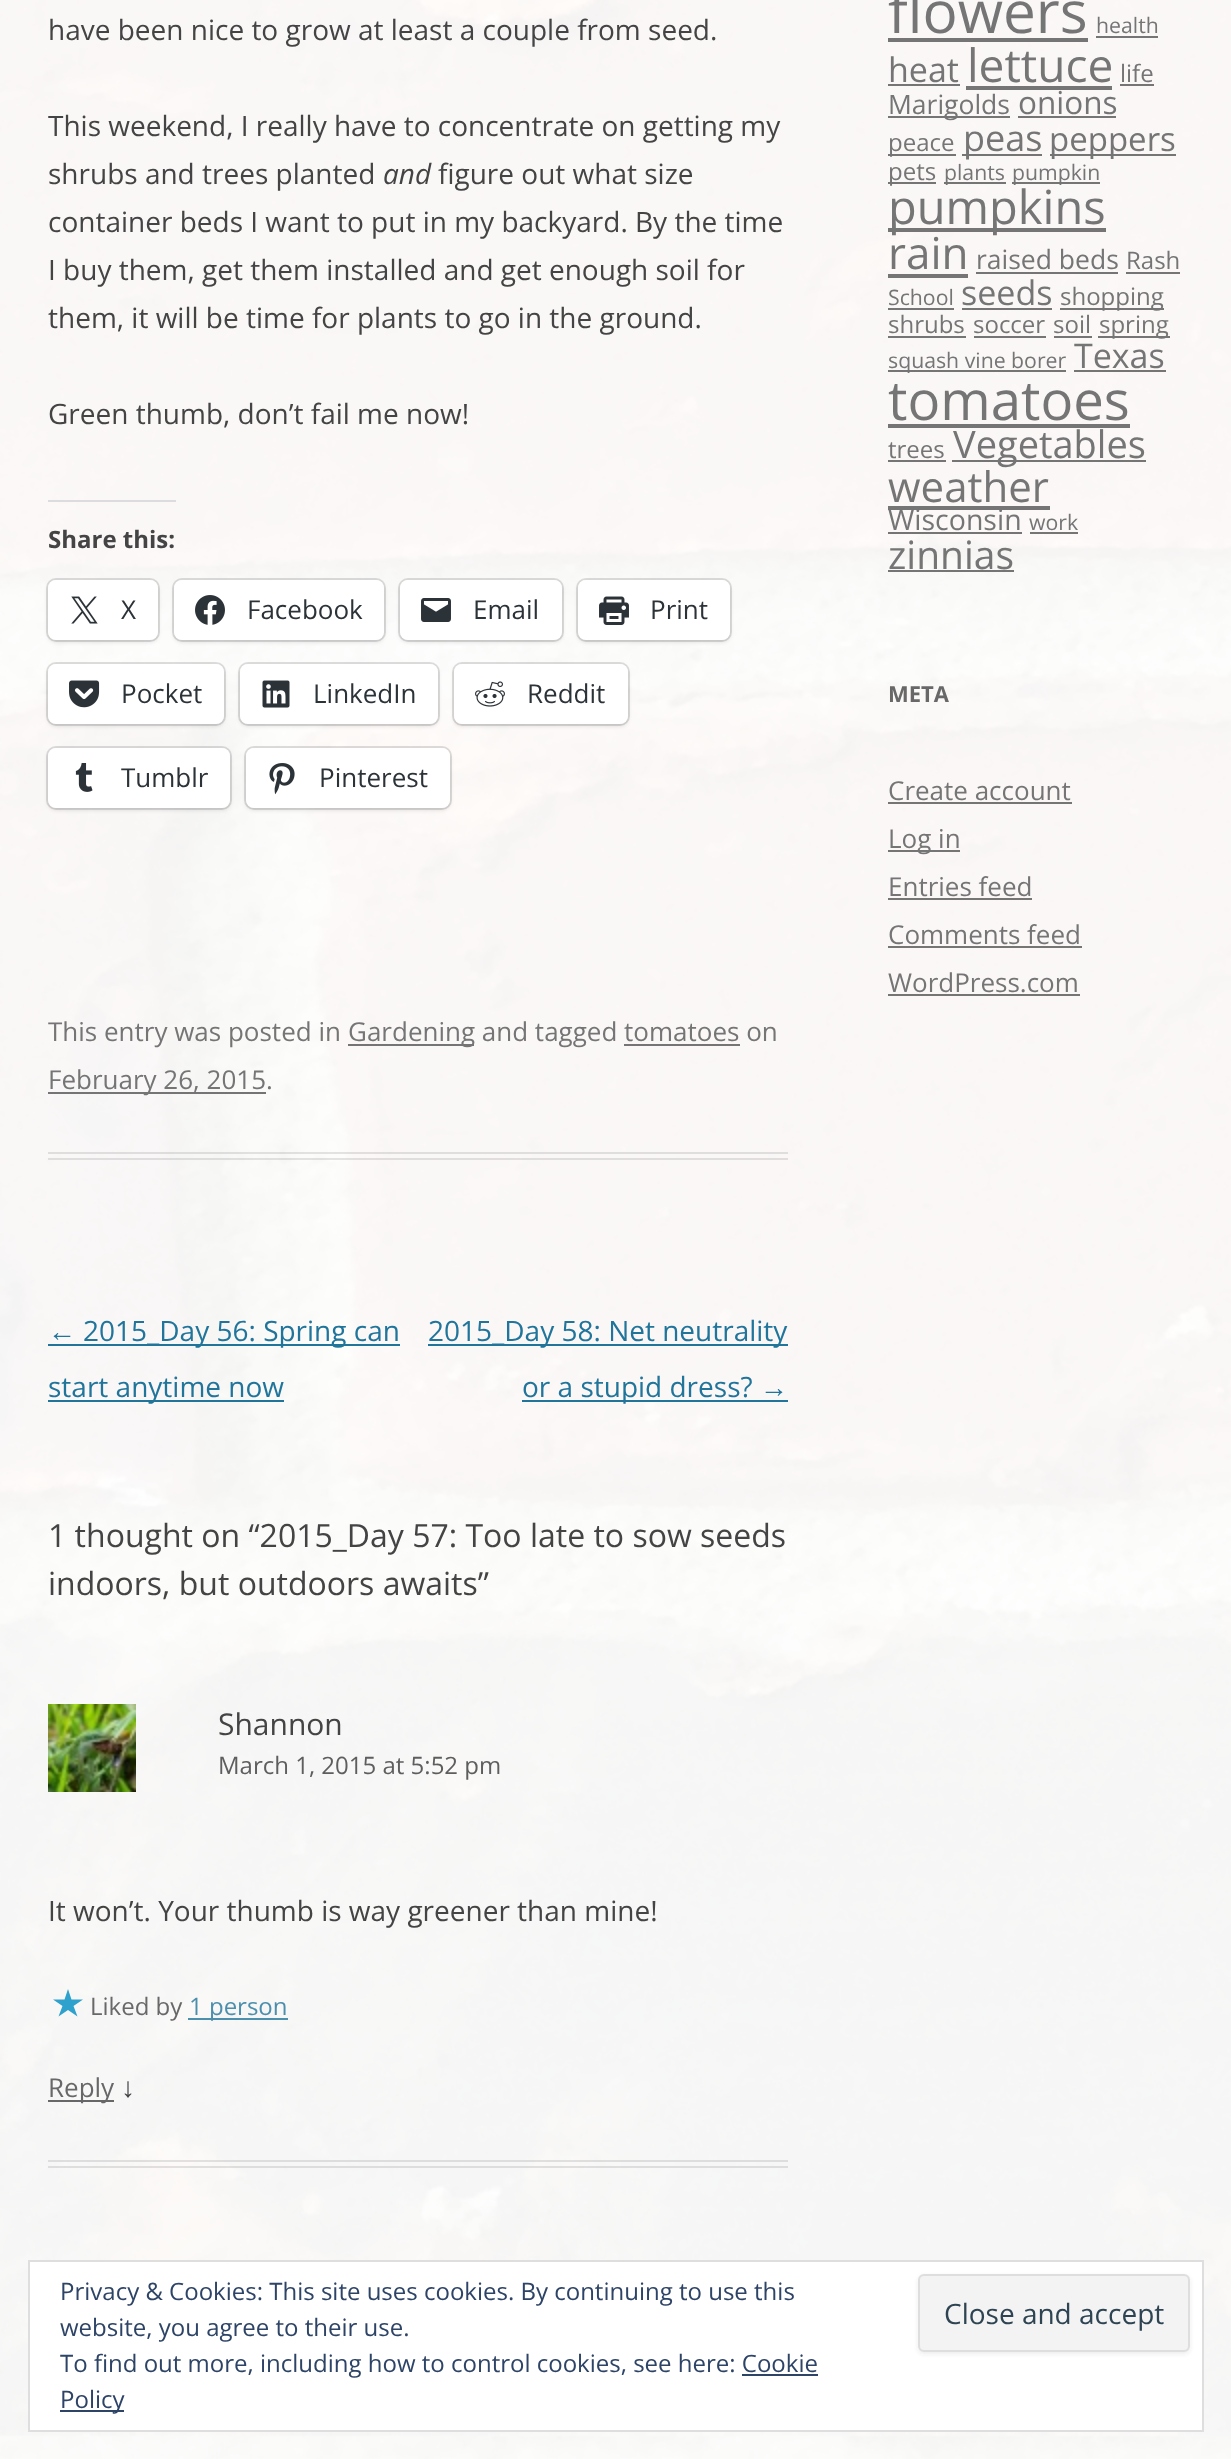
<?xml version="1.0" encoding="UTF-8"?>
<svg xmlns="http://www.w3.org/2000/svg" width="1231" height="2459">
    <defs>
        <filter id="blur1" x="-50%" y="-200%" width="200%" height="500%"><feGaussianBlur stdDeviation="2"/></filter>
    </defs>
    <rect width="100%" height="100%" fill="#FFFFFF"/>
    <image x="0" y="0" width="1231" height="2459" href="img_01.png"/>
    <rect x="48" y="1152" width="740" height="2" fill="#000000" fill-opacity="0.1"/>
    <rect x="48" y="1158" width="740" height="2" fill="#000000" fill-opacity="0.1"/>
    <text x="48" y="40" font-family="Open Sans" font-size="28" fill="#444444">have been nice to grow at least a couple from seed.</text>
    <text font-family="Open Sans" font-size="28" fill="#444444">
        <tspan x="48" y="136">This weekend, I really have to concentrate on getting my</tspan>
        <tspan x="48" y="184">shrubs and trees planted</tspan>
    </text>
    <text x="383" y="184" font-family="Open Sans" font-size="28" font-style="italic" fill="#444444">and</text>
    <text x="438" y="184" font-family="Open Sans" font-size="28" fill="#444444">figure out what size</text>
    <text font-family="Open Sans" font-size="28" fill="#444444">
        <tspan x="48" y="232">container beds I want to put in my backyard. By the time</tspan>
        <tspan x="48" y="280">I buy them, get them installed and get enough soil for</tspan>
        <tspan x="48" y="328">them, it will be time for plants to go in the ground.</tspan>
    </text>
    <text x="48" y="424" font-family="Open Sans" font-size="28" fill="#444444">Green thumb, don’t fail me now!</text>
    <rect x="48" y="500" width="128" height="2" fill="#DCDCDE"/>
    <text x="48" y="548" font-family="Open Sans" font-size="24" font-weight="700" fill="#444444">Share this:</text>
    <rect x="47" y="579" width="112" height="62" rx="9" fill="none" stroke="#000000" stroke-opacity="0.12" stroke-width="2"/>
    <rect x="48" y="582" width="110" height="60" rx="8" fill="#000000" fill-opacity="0.12" filter="url(#blur1)"/>
    <rect x="48" y="580" width="110" height="60" rx="8" fill="#FFFFFF"/>
    <image x="71" y="596" width="27" height="28" href="img_02.png"/>
    <text x="121" y="619" font-family="Open Sans" font-size="26" fill="#2C3338">X</text>
    <rect x="173" y="579" width="212" height="62" rx="9" fill="none" stroke="#000000" stroke-opacity="0.12" stroke-width="2"/>
    <rect x="174" y="582" width="210" height="60" rx="8" fill="#000000" fill-opacity="0.12" filter="url(#blur1)"/>
    <rect x="174" y="580" width="210" height="60" rx="8" fill="#FFFFFF"/>
    <image x="195" y="595" width="30" height="30" href="img_03.png"/>
    <text x="247" y="619" font-family="Open Sans" font-size="26" fill="#2C3338">Facebook</text>
    <rect x="399" y="579" width="164" height="62" rx="9" fill="none" stroke="#000000" stroke-opacity="0.12" stroke-width="2"/>
    <rect x="400" y="582" width="162" height="60" rx="8" fill="#000000" fill-opacity="0.12" filter="url(#blur1)"/>
    <rect x="400" y="580" width="162" height="60" rx="8" fill="#FFFFFF"/>
    <image x="421" y="598" width="30" height="24" href="img_04.png"/>
    <text x="473" y="619" font-family="Open Sans" font-size="26" fill="#2C3338">Email</text>
    <rect x="577" y="579" width="154" height="62" rx="9" fill="none" stroke="#000000" stroke-opacity="0.12" stroke-width="2"/>
    <rect x="578" y="582" width="152" height="60" rx="8" fill="#000000" fill-opacity="0.12" filter="url(#blur1)"/>
    <rect x="578" y="580" width="152" height="60" rx="8" fill="#FFFFFF"/>
    <image x="599" y="596" width="30" height="29" href="img_05.png"/>
    <text x="650" y="619" font-family="Open Sans" font-size="26" fill="#2C3338">Print</text>
    <rect x="47" y="663" width="178" height="62" rx="9" fill="none" stroke="#000000" stroke-opacity="0.12" stroke-width="2"/>
    <rect x="48" y="666" width="176" height="60" rx="8" fill="#000000" fill-opacity="0.12" filter="url(#blur1)"/>
    <rect x="48" y="664" width="176" height="60" rx="8" fill="#FFFFFF"/>
    <image x="69" y="680" width="31" height="28" href="img_06.png"/>
    <text x="121" y="703" font-family="Open Sans" font-size="26" fill="#2C3338">Pocket</text>
    <rect x="239" y="663" width="200" height="62" rx="9" fill="none" stroke="#000000" stroke-opacity="0.12" stroke-width="2"/>
    <rect x="240" y="666" width="198" height="60" rx="8" fill="#000000" fill-opacity="0.12" filter="url(#blur1)"/>
    <rect x="240" y="664" width="198" height="60" rx="8" fill="#FFFFFF"/>
    <image x="262" y="680" width="28" height="28" href="img_07.png"/>
    <text x="313" y="703" font-family="Open Sans" font-size="26" fill="#2C3338">LinkedIn</text>
    <rect x="453" y="663" width="176" height="62" rx="9" fill="none" stroke="#000000" stroke-opacity="0.12" stroke-width="2"/>
    <rect x="454" y="666" width="174" height="60" rx="8" fill="#000000" fill-opacity="0.12" filter="url(#blur1)"/>
    <rect x="454" y="664" width="174" height="60" rx="8" fill="#FFFFFF"/>
    <image x="475" y="681" width="30" height="26" href="img_08.png"/>
    <text x="527" y="703" font-family="Open Sans" font-size="26" fill="#2C3338">Reddit</text>
    <rect x="47" y="747" width="184" height="62" rx="9" fill="none" stroke="#000000" stroke-opacity="0.12" stroke-width="2"/>
    <rect x="48" y="750" width="182" height="60" rx="8" fill="#000000" fill-opacity="0.12" filter="url(#blur1)"/>
    <rect x="48" y="748" width="182" height="60" rx="8" fill="#FFFFFF"/>
    <image x="75" y="763" width="18" height="29" href="img_09.png"/>
    <text x="121" y="787" font-family="Open Sans" font-size="26" fill="#2C3338">Tumblr</text>
    <rect x="245" y="747" width="206" height="62" rx="9" fill="none" stroke="#000000" stroke-opacity="0.12" stroke-width="2"/>
    <rect x="246" y="750" width="204" height="60" rx="8" fill="#000000" fill-opacity="0.12" filter="url(#blur1)"/>
    <rect x="246" y="748" width="204" height="60" rx="8" fill="#FFFFFF"/>
    <image x="269" y="763" width="26" height="32" href="img_10.png"/>
    <text x="319" y="787" font-family="Open Sans" font-size="26" fill="#2C3338">Pinterest</text>
    <text x="48" y="1041" font-family="Open Sans" font-size="26" fill="#757575">This entry was posted in</text>
    <rect x="348" y="1044" width="126" height="2" fill="#757575"/>
    <text x="348" y="1041" font-family="Open Sans" font-size="26" fill="#757575">Gardening and tagged tomatoes on</text>
    <rect x="624" y="1044" width="116" height="2" fill="#757575"/>
    <rect x="48" y="1092" width="218" height="2" fill="#757575"/>
    <text x="48" y="1089" font-family="Open Sans" font-size="26" fill="#757575">February 26, 2015.</text>
    <text x="48" y="1341" font-family="Liberation Sans" font-size="28" fill="#21759B">←</text>
    <rect x="48" y="1344" width="352" height="2" fill="#21759B"/>
    <text x="83" y="1341" font-family="Open Sans" font-size="28" fill="#21759B">2015_Day 56: Spring can</text>
    <rect x="48" y="1400" width="236" height="2" fill="#21759B"/>
    <text x="48" y="1397" font-family="Open Sans" font-size="28" fill="#21759B">start anytime now</text>
    <rect x="428" y="1344" width="360" height="2" fill="#21759B"/>
    <text x="428" y="1341" font-family="Open Sans" font-size="28" fill="#21759B">2015_Day 58: Net neutrality</text>
    <rect x="522" y="1400" width="266" height="2" fill="#21759B"/>
    <text x="522" y="1397" font-family="Open Sans" font-size="28" fill="#21759B">or a stupid dress?</text>
    <text x="760" y="1397" font-family="Liberation Sans" font-size="28" fill="#21759B">→</text>
    <text font-family="Open Sans" font-size="32" fill="#444444">
        <tspan x="48" y="1547">1 thought on “2015_Day 57: Too late to sow seeds</tspan>
        <tspan x="48" y="1595">indoors, but outdoors awaits”</tspan>
    </text>
    <rect x="48" y="2160" width="740" height="2" fill="#000000" fill-opacity="0.1"/>
    <rect x="48" y="2166" width="740" height="2" fill="#000000" fill-opacity="0.1"/>
    <image x="48" y="1704" width="88" height="88" href="img_11.png"/>
    <text x="218" y="1735" font-family="Open Sans" font-size="30" fill="#444444">Shannon</text>
    <text x="218" y="1774" font-family="Open Sans" font-size="24" fill="#5E5E5E">March 1, 2015 at 5:52 pm</text>
    <text x="48" y="1921" font-family="Open Sans" font-size="28" fill="#444444">It won’t. Your thumb is way greener than mine!</text>
    <path d="M 83 1999.5 L 73.5 2006 L 77.5 2016.5 L 68 2010 L 58.5 2016.5 L 62.5 2006 L 53 1999.5 H 64.5 L 68 1989 L 71.5 1999.5 Z" fill="#2EA2CC"/>
    <text x="90" y="2015" font-family="Open Sans" font-size="24" fill="#686868">Liked by</text>
    <rect x="188" y="2018" width="100" height="2" fill="#21759B" fill-opacity="0.8"/>
    <text x="189" y="2015" font-family="Open Sans" font-size="24" fill="#4C8FAD">1 person</text>
    <rect x="48" y="2100" width="66" height="2" fill="#686868"/>
    <text x="48" y="2097" font-family="Open Sans" font-size="26" fill="#686868">Reply</text>
    <text x="121" y="2097" font-family="Liberation Sans" font-size="28" fill="#444444">↓</text>
    <text x="888" y="33" font-family="Open Sans" font-size="58.5" fill="#757575">flowers</text>
    <rect x="888" y="38" width="200" height="4" fill="#757575"/>
    <text x="1096" y="33" font-family="Open Sans" font-size="21.25" fill="#757575">health</text>
    <rect x="1096" y="36" width="62" height="2" fill="#757575"/>
    <text x="888" y="82" font-family="Open Sans" font-size="34" fill="#757575">heat</text>
    <rect x="888" y="84" width="72" height="2" fill="#757575"/>
    <text x="967" y="82" font-family="Open Sans" font-size="46" fill="#757575">lettuce</text>
    <rect x="966" y="86" width="146" height="4" fill="#757575"/>
    <text x="1120" y="82" font-family="Open Sans" font-size="24" fill="#757575">life</text>
    <rect x="1120" y="84" width="34" height="2" fill="#757575"/>
    <rect x="888" y="116" width="122" height="2" fill="#757575"/>
    <text x="888" y="114" font-family="Open Sans" font-size="26.5" fill="#757575">Marigolds</text>
    <text x="1018" y="114" font-family="Open Sans" font-size="31.5" fill="#757575">onions</text>
    <rect x="1018" y="116" width="98" height="2" fill="#757575"/>
    <rect x="888" y="154" width="68" height="2" fill="#757575"/>
    <text x="888" y="151" font-family="Open Sans" font-size="24" fill="#757575">peace</text>
    <rect x="962" y="154" width="80" height="2" fill="#757575"/>
    <text x="963" y="151" font-family="Open Sans" font-size="36" fill="#757575">peas</text>
    <rect x="1050" y="154" width="126" height="2" fill="#757575"/>
    <text x="1049" y="151" font-family="Open Sans" font-size="33" fill="#757575">peppers</text>
    <rect x="888" y="182" width="48" height="2" fill="#757575"/>
    <text x="888" y="180" font-family="Open Sans" font-size="24" fill="#757575">pets</text>
    <rect x="944" y="182" width="62" height="2" fill="#757575"/>
    <text x="944" y="180" font-family="Open Sans" font-size="21.25" fill="#757575">plants</text>
    <rect x="1012" y="182" width="88" height="2" fill="#757575"/>
    <text x="1012" y="180" font-family="Open Sans" font-size="21.25" fill="#757575">pumpkin</text>
    <rect x="888" y="228" width="218" height="4" fill="#757575"/>
    <text x="888" y="224" font-family="Open Sans" font-size="47" fill="#757575">pumpkins</text>
    <text x="888" y="269" font-family="Open Sans" font-size="44" fill="#757575">rain</text>
    <rect x="888" y="274" width="80" height="4" fill="#757575"/>
    <text x="976" y="269" font-family="Open Sans" font-size="26.5" fill="#757575">raised beds</text>
    <rect x="976" y="272" width="142" height="2" fill="#757575"/>
    <text x="1126" y="269" font-family="Open Sans" font-size="24" fill="#757575">Rash</text>
    <rect x="1126" y="272" width="54" height="2" fill="#757575"/>
    <text x="888" y="305" font-family="Open Sans" font-size="21.25" fill="#757575">School</text>
    <rect x="888" y="308" width="66" height="2" fill="#757575"/>
    <text x="961" y="305" font-family="Open Sans" font-size="34" fill="#757575">seeds</text>
    <rect x="962" y="308" width="90" height="2" fill="#757575"/>
    <rect x="1060" y="308" width="104" height="2" fill="#757575"/>
    <text x="1060" y="305" font-family="Open Sans" font-size="24" fill="#757575">shopping</text>
    <text x="888" y="333" font-family="Open Sans" font-size="24" fill="#757575">shrubs</text>
    <rect x="888" y="336" width="78" height="2" fill="#757575"/>
    <text x="973" y="333" font-family="Open Sans" font-size="24" fill="#757575">soccer</text>
    <rect x="974" y="336" width="72" height="2" fill="#757575"/>
    <text x="1053" y="333" font-family="Open Sans" font-size="24" fill="#757575">soil</text>
    <rect x="1054" y="336" width="38" height="2" fill="#757575"/>
    <rect x="1098" y="336" width="72" height="2" fill="#757575"/>
    <text x="1099" y="333" font-family="Open Sans" font-size="24" fill="#757575">spring</text>
    <rect x="888" y="370" width="178" height="2" fill="#757575"/>
    <text x="888" y="368" font-family="Open Sans" font-size="21.25" fill="#757575">squash vine borer</text>
    <text x="1074" y="368" font-family="Open Sans" font-size="34" fill="#757575">Texas</text>
    <rect x="1074" y="370" width="92" height="2" fill="#757575"/>
    <text x="888" y="420" font-family="Open Sans" font-size="54.5" fill="#757575">tomatoes</text>
    <rect x="888" y="424" width="242" height="4" fill="#757575"/>
    <text x="888" y="458" font-family="Open Sans" font-size="24" fill="#757575">trees</text>
    <rect x="888" y="460" width="58" height="2" fill="#757575"/>
    <rect x="952" y="460" width="194" height="2" fill="#757575"/>
    <text x="953" y="458" font-family="Open Sans" font-size="38" fill="#757575">Vegetables</text>
    <text x="888" y="502" font-family="Open Sans" font-size="42" fill="#757575">weather</text>
    <rect x="888" y="506" width="162" height="4" fill="#757575"/>
    <text x="888" y="530" font-family="Open Sans" font-size="28.5" fill="#757575">Wisconsin</text>
    <rect x="888" y="532" width="134" height="2" fill="#757575"/>
    <text x="1029" y="530" font-family="Open Sans" font-size="21.25" fill="#757575">work</text>
    <rect x="1030" y="532" width="48" height="2" fill="#757575"/>
    <text x="888" y="569" font-family="Open Sans" font-size="39" fill="#757575">zinnias</text>
    <rect x="888" y="570" width="126" height="2" fill="#757575"/>
    <text x="888" y="702" font-family="Open Sans" font-size="22" font-weight="700" fill="#686868">META</text>
    <text x="888" y="800" font-family="Open Sans" font-size="26" fill="#757575">Create account</text>
    <rect x="888" y="802" width="184" height="2" fill="#757575"/>
    <rect x="888" y="850" width="72" height="2" fill="#757575"/>
    <text font-family="Open Sans" font-size="26" fill="#757575">
        <tspan x="888" y="848">Log in</tspan>
        <tspan x="888" y="896">Entries feed</tspan>
    </text>
    <rect x="888" y="898" width="144" height="2" fill="#757575"/>
    <text x="888" y="944" font-family="Open Sans" font-size="26" fill="#757575">Comments feed</text>
    <rect x="888" y="946" width="194" height="2" fill="#757575"/>
    <text x="888" y="992" font-family="Open Sans" font-size="26" fill="#757575">WordPress.com</text>
    <rect x="888" y="994" width="192" height="2" fill="#757575"/>
    <rect x="29" y="2261" width="1174" height="170" fill="#FFFFFF" stroke="#DEDEDE" stroke-width="2"/>
    <text font-family="Open Sans" font-size="24" fill="#2E4467">
        <tspan x="60" y="2300">Privacy &amp; Cookies: This site uses cookies. By continuing to use this</tspan>
        <tspan x="60" y="2336">website, you agree to their use.</tspan>
    </text>
    <rect x="918" y="2276" width="272" height="78" rx="6" fill="#404040" fill-opacity="0.1" filter="url(#blur1)"/>
    <rect x="919" y="2275" width="270" height="76" rx="5" fill="#F3F3F3" stroke="#DEDEDE" stroke-width="2"/>
    <text x="944" y="2324" font-family="Open Sans" font-size="28" fill="#2E4453">Close and accept</text>
    <text x="60" y="2372" font-family="Open Sans" font-size="24" fill="#2E4467">To find out more, including how to control cookies, see here: Cookie</text>
    <rect x="60" y="2410" width="64" height="2" fill="#2E4467"/>
    <text x="60" y="2408" font-family="Open Sans" font-size="24" fill="#2E4467">Policy</text>
    <rect x="742" y="2374" width="76" height="2" fill="#2E4467"/>
</svg>
